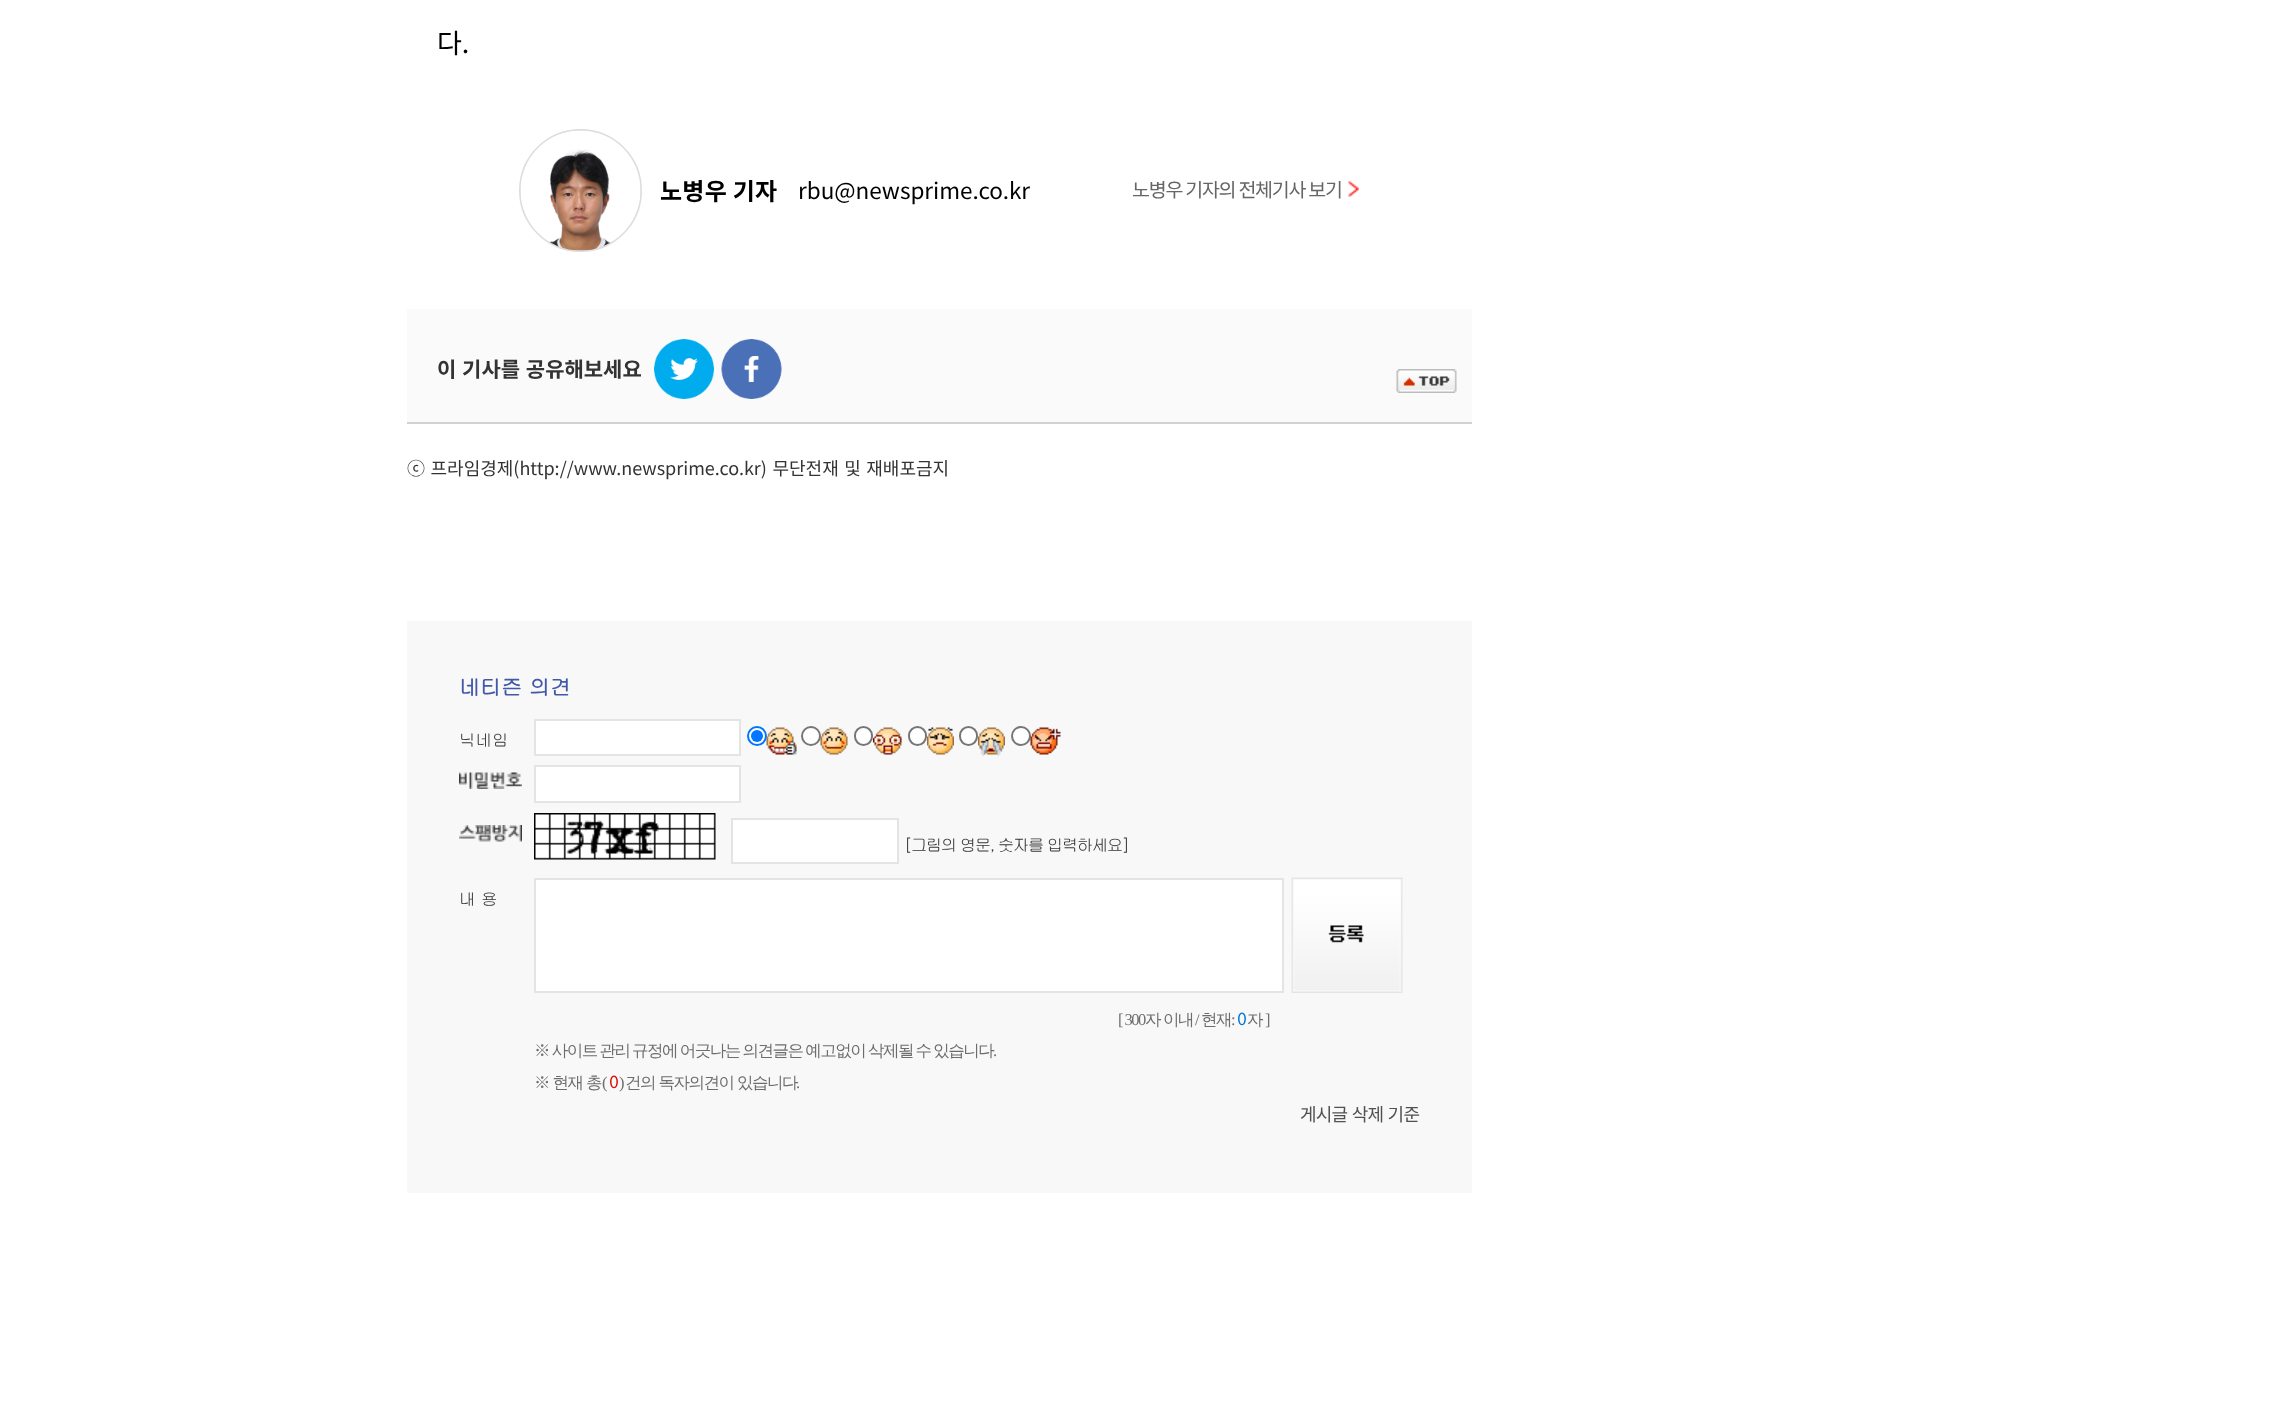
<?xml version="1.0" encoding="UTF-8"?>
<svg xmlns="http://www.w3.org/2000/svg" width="2282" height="1407">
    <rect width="100%" height="100%" fill="#FFFFFF"/>
    <text x="437" y="53" font-family="Noto Sans KR" font-size="27" fill="#000000">다.</text>
    <circle cx="580.5" cy="190.5" r="60.5" fill="none" stroke="#DDDDDD" stroke-width="2"/>
    <image x="520" y="130" width="121" height="121" href="img_01.png"/>
    <text x="660" y="200" font-family="Noto Sans KR" font-size="24" font-weight="700" letter-spacing="0.25" fill="#000000">노병우 기자</text>
    <text x="798" y="199" font-family="Noto Sans KR" font-size="22.5" fill="#000000">rbu@newsprime.co.kr</text>
    <text x="1132" y="197" font-family="Noto Sans KR" font-size="19.5" letter-spacing="-1.25" fill="#666666">노병우 기자의 전체기사 보기</text>
    <image x="1348" y="181" width="11" height="16" href="img_02.png"/>
    <rect x="407" y="309" width="1065" height="113" fill="#FAFAFA"/>
    <rect x="407" y="422" width="1065" height="2" fill="#D1D1D1"/>
    <text x="437" y="377" word-spacing="1" font-family="Noto Sans KR" font-size="21" font-weight="700" fill="#333333">이 기사를 공유해보세요</text>
    <image x="654" y="339" width="60" height="60" href="img_03.png"/>
    <image x="721" y="339" width="61" height="60" href="img_04.png"/>
    <image x="1396" y="369" width="61" height="24" href="img_05.png"/>
    <text x="407" y="475" word-spacing="1.5" font-family="Noto Sans KR" font-size="18" fill="#333333">ⓒ 프라임경제(http://www.newsprime.co.kr) 무단전재 및 재배포금지</text>
    <rect x="407" y="621" width="1065" height="572" fill="#F8F8F8"/>
    <text x="459" y="695" font-family="Gulim" font-size="21" font-weight="700" fill="#4258A8">네티즌 의견</text>
    <text x="459" y="746" font-family="Gulim" font-size="16.5" fill="#333333">닉네임</text>
    <rect x="535" y="720" width="205" height="35" fill="#FFFFFF" stroke="#E4E4E4" stroke-width="2"/>
    <circle cx="757" cy="736" r="9" fill="#FFFFFF" stroke="#0075FF" stroke-width="2"/>
    <circle cx="757" cy="736" r="6" fill="#0075FF"/>
    <image x="766" y="727" width="31" height="28" href="img_06.png"/>
    <circle cx="811" cy="736" r="9" fill="#FFFFFF" stroke="#767676" stroke-width="2"/>
    <image x="820" y="727" width="28" height="28" href="img_07.png"/>
    <rect x="855" y="727" width="17" height="18" rx="8.5" fill="#FFFFFF" stroke="#767676" stroke-width="2"/>
    <image x="873" y="727" width="29" height="28" href="img_08.png"/>
    <rect x="909" y="727" width="17" height="18" rx="8.5" fill="#FFFFFF" stroke="#767676" stroke-width="2"/>
    <image x="927" y="727" width="27" height="28" href="img_09.png"/>
    <rect x="960" y="727" width="17" height="18" rx="8.5" fill="#FFFFFF" stroke="#767676" stroke-width="2"/>
    <image x="978" y="727" width="27" height="29" href="img_10.png"/>
    <circle cx="1021" cy="736" r="9" fill="#FFFFFF" stroke="#767676" stroke-width="2"/>
    <image x="1030" y="727" width="31" height="28" href="img_11.png"/>
    <image x="459" y="772" width="63" height="17" href="img_12.png"/>
    <rect x="535" y="766" width="205" height="36" fill="#FFFFFF" stroke="#E4E4E4" stroke-width="2"/>
    <image x="459" y="825" width="63" height="17" href="img_13.png"/>
    <image x="534" y="813" width="182" height="47" href="img_14.png"/>
    <rect x="732" y="819" width="166" height="44" fill="#FFFFFF" stroke="#E4E4E4" stroke-width="2"/>
    <text x="904" y="851" font-family="Gulim" font-size="16.5" letter-spacing="-1.5" fill="#333333">[그림의 영문, 숫자를 입력하세요]</text>
    <text x="459" y="905" font-family="Gulim" font-size="16.5" fill="#333333">내 용</text>
    <rect x="535" y="879" width="748" height="113" fill="#FFFFFF" stroke="#E4E4E4" stroke-width="2"/>
    <image x="1291" y="877" width="112" height="116" href="img_15.png"/>
    <text x="1118" y="1025" font-family="Liberation Serif" font-size="16.5" letter-spacing="-1.5" fill="#6E6D6D">[ 300</text>
    <text x="1145" y="1025" font-family="WenQuanYi Zen Hei" font-size="16.5" font-weight="500" letter-spacing="-1.5" fill="#6E6D6D">자</text>
    <text x="1163" y="1025" font-family="WenQuanYi Zen Hei" font-size="16.5" font-weight="500" letter-spacing="-1.5" fill="#6E6D6D">이내</text>
    <text x="1195" y="1025" font-family="Liberation Serif" font-size="16.5" letter-spacing="-1.5" fill="#6E6D6D">/</text>
    <text x="1201" y="1025" font-family="WenQuanYi Zen Hei" font-size="16.5" font-weight="500" letter-spacing="-1.5" fill="#6E6D6D">현재</text>
    <text x="1231" y="1025" font-family="Liberation Serif" font-size="16.5" letter-spacing="-1.5" fill="#6E6D6D">:</text>
    <text x="1237" y="1025" font-family="Gulim" font-size="16.5" font-weight="700" letter-spacing="-1.5" fill="#0076DA">0</text>
    <text x="1247" y="1025" font-family="WenQuanYi Zen Hei" font-size="16.5" font-weight="500" letter-spacing="-1.5" fill="#6E6D6D">자</text>
    <text x="1265" y="1025" font-family="Liberation Serif" font-size="16.5" letter-spacing="-1.5" fill="#6E6D6D">]</text>
    <text x="534" y="1056" word-spacing="-0.75" font-family="WenQuanYi Zen Hei" font-size="16.5" font-weight="500" letter-spacing="-1.5" fill="#6E6D6D">※ 사이트 관리 규정에 어긋나는 의견글은 예고없이 삭제될 수 있습니다</text>
    <text x="993" y="1056" font-family="Liberation Serif" font-size="16.5" letter-spacing="-1.5" fill="#6E6D6D">.</text>
    <text x="534" y="1088" font-family="WenQuanYi Zen Hei" font-size="16.5" font-weight="500" letter-spacing="-1.5" fill="#6E6D6D">※ 현재 총</text>
    <text x="602" y="1088" font-family="Liberation Serif" font-size="16.5" letter-spacing="-1.5" fill="#6E6D6D">(</text>
    <text x="609" y="1088" font-family="Gulim" font-size="16.5" font-weight="700" letter-spacing="-1.5" fill="#DC0C00">0</text>
    <text x="619" y="1088" font-family="Liberation Serif" font-size="16.5" letter-spacing="-1.5" fill="#6E6D6D">)</text>
    <text x="625" y="1088" font-family="WenQuanYi Zen Hei" font-size="16.5" font-weight="500" letter-spacing="-1.5" fill="#6E6D6D">건의 독자의견이 있습니다</text>
    <text x="796" y="1088" font-family="Liberation Serif" font-size="16.5" letter-spacing="-1.5" fill="#6E6D6D">.</text>
    <text x="1300" y="1121" word-spacing="1" font-family="Noto Sans KR" font-size="18" letter-spacing="-0.75" fill="#515151">게시글 삭제 기준</text>
</svg>
